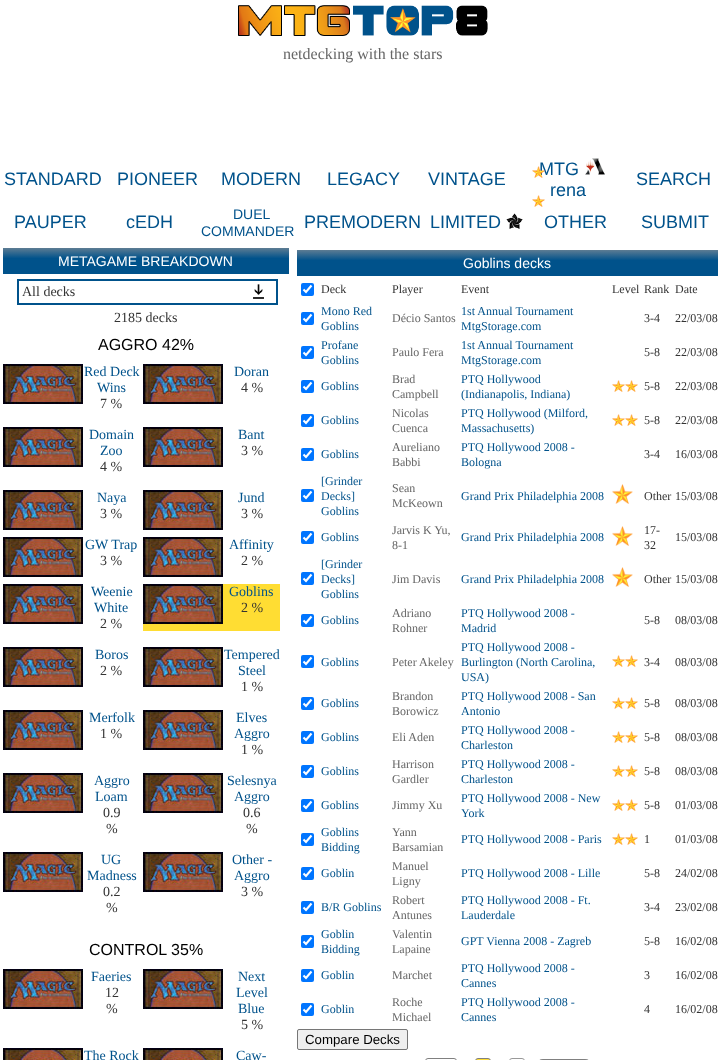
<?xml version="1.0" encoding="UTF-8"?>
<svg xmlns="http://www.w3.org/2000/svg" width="725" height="1060">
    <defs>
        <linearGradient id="g1" gradientUnits="userSpaceOnUse" x1="146" y1="248" x2="146" y2="274"><stop offset="0" stop-color="#5D7C93"/><stop offset="0.4" stop-color="#00528B"/><stop offset="1" stop-color="#00528B"/></linearGradient>
        <linearGradient id="g2" gradientUnits="userSpaceOnUse" x1="508" y1="250" x2="508" y2="276"><stop offset="0" stop-color="#5D7C93"/><stop offset="0.4" stop-color="#00528B"/><stop offset="1" stop-color="#00528B"/></linearGradient>
    </defs>
    <rect width="100%" height="100%" fill="#FFFFFF"/>
    <image x="238" y="5" width="250" height="31" href="img_01.png"/>
    <text x="283" y="59" font-family="Liberation Serif" font-size="16" fill="#666666">netdecking with the stars</text>
    <text x="4" y="185" font-family="Liberation Sans" font-size="18" fill="#00528B">STANDARD</text>
    <text x="117" y="185" font-family="Liberation Sans" font-size="18" fill="#00528B">PIONEER</text>
    <text x="221" y="185" font-family="Liberation Sans" font-size="18" fill="#00528B">MODERN</text>
    <text x="327" y="185" font-family="Liberation Sans" font-size="18" fill="#00528B">LEGACY</text>
    <text x="428" y="185" font-family="Liberation Sans" font-size="18" fill="#00528B">VINTAGE</text>
    <text x="539" y="175" font-family="Liberation Sans" font-size="18" fill="#00528B">MTG</text>
    <image x="585" y="158" width="20" height="17" href="img_02.png"/>
    <text x="550" y="196" font-family="Liberation Sans" font-size="18" fill="#00528B">rena</text>
    <text x="636" y="185" font-family="Liberation Sans" font-size="18" fill="#00528B">SEARCH</text>
    <image x="532" y="166" width="13" height="12" href="img_03.png"/>
    <image x="532" y="195" width="13" height="12" href="img_04.png"/>
    <text x="14" y="228" font-family="Liberation Sans" font-size="18" fill="#00528B">PAUPER</text>
    <text x="126" y="228" font-family="Liberation Sans" font-size="18" fill="#00528B">cEDH</text>
    <text x="233" y="219" font-family="Liberation Sans" font-size="14" fill="#00528B">DUEL</text>
    <text x="201" y="236" font-family="Liberation Sans" font-size="14" fill="#00528B">COMMANDER</text>
    <text x="304" y="228" font-family="Liberation Sans" font-size="18" fill="#00528B">PREMODERN</text>
    <text x="430" y="228" font-family="Liberation Sans" font-size="18" fill="#00528B">LIMITED</text>
    <image x="506" y="213" width="17" height="16" href="img_05.png"/>
    <text x="544" y="228" font-family="Liberation Sans" font-size="18" fill="#00528B">OTHER</text>
    <text x="641" y="228" font-family="Liberation Sans" font-size="18" fill="#00528B">SUBMIT</text>
    <rect x="3" y="248" width="286" height="26" fill="url(#g1)"/>
    <text x="58" y="266" font-family="Liberation Sans" font-size="14" fill="#FFFFFF">METAGAME BREAKDOWN</text>
    <rect x="17" y="279" width="261" height="26" fill="#00528B"/>
    <rect x="19" y="281" width="257" height="22" fill="#FFFFFF"/>
    <text x="22" y="296" font-family="Liberation Serif" font-size="14" fill="#333333">All decks</text>
    <image x="253" y="284" width="11" height="15" href="img_06.png"/>
    <text x="114" y="322" font-family="Liberation Serif" font-size="14" fill="#333333">2185 decks</text>
    <text x="98" y="350" font-family="Liberation Sans" font-size="16" fill="#000000">AGGRO 42%</text>
    <image x="3" y="364" width="80" height="40" href="img_07.png"/>
    <text x="84" y="376" font-family="Liberation Serif" font-size="14" fill="#00528B">Red Deck</text>
    <text x="97" y="392" font-family="Liberation Serif" font-size="14" fill="#00528B">Wins</text>
    <text x="100" y="408" font-family="Liberation Serif" font-size="14" fill="#333333">7 %</text>
    <image x="143" y="364" width="80" height="40" href="img_07.png"/>
    <text x="234" y="376" font-family="Liberation Serif" font-size="14" fill="#00528B">Doran</text>
    <text x="241" y="392" font-family="Liberation Serif" font-size="14" fill="#333333">4 %</text>
    <image x="3" y="427" width="80" height="40" href="img_07.png"/>
    <text x="89" y="439" font-family="Liberation Serif" font-size="14" fill="#00528B">Domain</text>
    <text x="100" y="455" font-family="Liberation Serif" font-size="14" fill="#00528B">Zoo</text>
    <text x="100" y="471" font-family="Liberation Serif" font-size="14" fill="#333333">4 %</text>
    <image x="143" y="427" width="80" height="40" href="img_07.png"/>
    <text x="238" y="439" font-family="Liberation Serif" font-size="14" fill="#00528B">Bant</text>
    <text x="241" y="455" font-family="Liberation Serif" font-size="14" fill="#333333">3 %</text>
    <image x="3" y="490" width="80" height="40" href="img_07.png"/>
    <text x="97" y="502" font-family="Liberation Serif" font-size="14" fill="#00528B">Naya</text>
    <text x="100" y="518" font-family="Liberation Serif" font-size="14" fill="#333333">3 %</text>
    <image x="143" y="490" width="80" height="40" href="img_07.png"/>
    <text x="238" y="502" font-family="Liberation Serif" font-size="14" fill="#00528B">Jund</text>
    <text x="241" y="518" font-family="Liberation Serif" font-size="14" fill="#333333">3 %</text>
    <image x="3" y="537" width="80" height="40" href="img_07.png"/>
    <text x="85" y="549" font-family="Liberation Serif" font-size="14" fill="#00528B">GW Trap</text>
    <text x="100" y="565" font-family="Liberation Serif" font-size="14" fill="#333333">3 %</text>
    <image x="143" y="537" width="80" height="40" href="img_07.png"/>
    <text x="229" y="549" font-family="Liberation Serif" font-size="14" fill="#00528B">Affinity</text>
    <text x="241" y="565" font-family="Liberation Serif" font-size="14" fill="#333333">2 %</text>
    <image x="3" y="584" width="80" height="40" href="img_07.png"/>
    <text x="91" y="596" font-family="Liberation Serif" font-size="14" fill="#00528B">Weenie</text>
    <text x="94" y="612" font-family="Liberation Serif" font-size="14" fill="#00528B">White</text>
    <text x="100" y="628" font-family="Liberation Serif" font-size="14" fill="#333333">2 %</text>
    <rect x="143" y="584" width="137" height="47" fill="#FFDD33"/>
    <image x="143" y="584" width="80" height="40" href="img_07.png"/>
    <text x="229" y="596" font-family="Liberation Serif" font-size="14" fill="#00528B">Goblins</text>
    <text x="241" y="612" font-family="Liberation Serif" font-size="14" fill="#333333">2 %</text>
    <image x="3" y="647" width="80" height="40" href="img_07.png"/>
    <text x="95" y="659" font-family="Liberation Serif" font-size="14" fill="#00528B">Boros</text>
    <text x="100" y="675" font-family="Liberation Serif" font-size="14" fill="#333333">2 %</text>
    <image x="143" y="647" width="80" height="40" href="img_07.png"/>
    <text x="224" y="659" font-family="Liberation Serif" font-size="14" fill="#00528B">Tempered</text>
    <text x="238" y="675" font-family="Liberation Serif" font-size="14" fill="#00528B">Steel</text>
    <text x="241" y="691" font-family="Liberation Serif" font-size="14" fill="#333333">1 %</text>
    <image x="3" y="710" width="80" height="40" href="img_07.png"/>
    <text x="89" y="722" font-family="Liberation Serif" font-size="14" fill="#00528B">Merfolk</text>
    <text x="100" y="738" font-family="Liberation Serif" font-size="14" fill="#333333">1 %</text>
    <image x="143" y="710" width="80" height="40" href="img_07.png"/>
    <text x="236" y="722" font-family="Liberation Serif" font-size="14" fill="#00528B">Elves</text>
    <text x="234" y="738" font-family="Liberation Serif" font-size="14" fill="#00528B">Aggro</text>
    <text x="241" y="754" font-family="Liberation Serif" font-size="14" fill="#333333">1 %</text>
    <image x="3" y="773" width="80" height="40" href="img_07.png"/>
    <text x="94" y="785" font-family="Liberation Serif" font-size="14" fill="#00528B">Aggro</text>
    <text x="95" y="801" font-family="Liberation Serif" font-size="14" fill="#00528B">Loam</text>
    <text x="103" y="817" font-family="Liberation Serif" font-size="14" fill="#333333">0.9</text>
    <text x="106" y="833" font-family="Liberation Serif" font-size="14" fill="#333333">%</text>
    <image x="143" y="773" width="80" height="40" href="img_07.png"/>
    <text x="227" y="785" font-family="Liberation Serif" font-size="14" fill="#00528B">Selesnya</text>
    <text x="234" y="801" font-family="Liberation Serif" font-size="14" fill="#00528B">Aggro</text>
    <text x="243" y="817" font-family="Liberation Serif" font-size="14" fill="#333333">0.6</text>
    <text x="246" y="833" font-family="Liberation Serif" font-size="14" fill="#333333">%</text>
    <image x="3" y="852" width="80" height="40" href="img_07.png"/>
    <text x="101" y="864" font-family="Liberation Serif" font-size="14" fill="#00528B">UG</text>
    <text x="87" y="880" font-family="Liberation Serif" font-size="14" fill="#00528B">Madness</text>
    <text x="103" y="896" font-family="Liberation Serif" font-size="14" fill="#333333">0.2</text>
    <text x="106" y="912" font-family="Liberation Serif" font-size="14" fill="#333333">%</text>
    <image x="143" y="852" width="80" height="40" href="img_07.png"/>
    <text x="232" y="864" font-family="Liberation Serif" font-size="14" fill="#00528B">Other -</text>
    <text x="234" y="880" font-family="Liberation Serif" font-size="14" fill="#00528B">Aggro</text>
    <text x="241" y="896" font-family="Liberation Serif" font-size="14" fill="#333333">3 %</text>
    <text x="89" y="955" font-family="Liberation Sans" font-size="16" fill="#000000">CONTROL 35%</text>
    <image x="3" y="969" width="80" height="40" href="img_07.png"/>
    <text x="91" y="981" font-family="Liberation Serif" font-size="14" fill="#00528B">Faeries</text>
    <text x="105" y="997" font-family="Liberation Serif" font-size="14" fill="#333333">12</text>
    <text x="106" y="1013" font-family="Liberation Serif" font-size="14" fill="#333333">%</text>
    <image x="143" y="969" width="80" height="40" href="img_07.png"/>
    <text x="238" y="981" font-family="Liberation Serif" font-size="14" fill="#00528B">Next</text>
    <text x="236" y="997" font-family="Liberation Serif" font-size="14" fill="#00528B">Level</text>
    <text x="238" y="1013" font-family="Liberation Serif" font-size="14" fill="#00528B">Blue</text>
    <text x="241" y="1029" font-family="Liberation Serif" font-size="14" fill="#333333">5 %</text>
    <image x="3" y="1048" width="80" height="12" href="img_08.png"/>
    <text x="84" y="1060" font-family="Liberation Serif" font-size="14" fill="#00528B">The Rock</text>
    <image x="143" y="1048" width="80" height="12" href="img_08.png"/>
    <text x="236" y="1060" font-family="Liberation Serif" font-size="14" fill="#00528B">Caw-</text>
    <rect x="297" y="250" width="421" height="26" fill="url(#g2)"/>
    <text x="463" y="268" font-family="Liberation Sans" font-size="14" fill="#FFFFFF">Goblins decks</text>
    <rect x="301" y="283" width="13" height="13" rx="2" fill="#0075FF"/>
    <path d="M 303.5 289.5 L 306 292 L 311.5 285.5" fill="none" stroke="#FFFFFF" stroke-width="2.1"/>
    <text x="321" y="293" font-family="Liberation Serif" font-size="12" fill="#333333">Deck</text>
    <text x="392" y="293" font-family="Liberation Serif" font-size="12" fill="#333333">Player</text>
    <text x="461" y="293" font-family="Liberation Serif" font-size="12" fill="#333333">Event</text>
    <text x="612" y="293" font-family="Liberation Serif" font-size="12" fill="#333333">Level</text>
    <text x="644" y="293" font-family="Liberation Serif" font-size="12" fill="#333333">Rank</text>
    <text x="675" y="293" font-family="Liberation Serif" font-size="12" fill="#333333">Date</text>
    <rect x="301" y="312" width="13" height="13" rx="2" fill="#0075FF"/>
    <path d="M 303.5 318.5 L 306 321 L 311.5 314.5" fill="none" stroke="#FFFFFF" stroke-width="2.1"/>
    <text font-family="Liberation Serif" font-size="12" fill="#00528B">
        <tspan x="321" y="315">Mono Red</tspan>
        <tspan x="321" y="330">Goblins</tspan>
    </text>
    <text x="392" y="322" font-family="Liberation Serif" font-size="12" fill="#666666">Décio Santos</text>
    <text font-family="Liberation Serif" font-size="12" fill="#00528B">
        <tspan x="461" y="315">1st Annual Tournament</tspan>
        <tspan x="461" y="330">MtgStorage.com</tspan>
    </text>
    <text x="644" y="322" font-family="Liberation Serif" font-size="12" fill="#333333">3-4</text>
    <text x="675" y="322" font-family="Liberation Serif" font-size="12" fill="#333333">22/03/08</text>
    <rect x="301" y="346" width="13" height="13" rx="2" fill="#0075FF"/>
    <path d="M 303.5 352.5 L 306 355 L 311.5 348.5" fill="none" stroke="#FFFFFF" stroke-width="2.1"/>
    <text font-family="Liberation Serif" font-size="12" fill="#00528B">
        <tspan x="321" y="349">Profane</tspan>
        <tspan x="321" y="364">Goblins</tspan>
    </text>
    <text x="392" y="356" font-family="Liberation Serif" font-size="12" fill="#666666">Paulo Fera</text>
    <text font-family="Liberation Serif" font-size="12" fill="#00528B">
        <tspan x="461" y="349">1st Annual Tournament</tspan>
        <tspan x="461" y="364">MtgStorage.com</tspan>
    </text>
    <text x="644" y="356" font-family="Liberation Serif" font-size="12" fill="#333333">5-8</text>
    <text x="675" y="356" font-family="Liberation Serif" font-size="12" fill="#333333">22/03/08</text>
    <rect x="301" y="380" width="13" height="13" rx="2" fill="#0075FF"/>
    <path d="M 303.5 386.5 L 306 389 L 311.5 382.5" fill="none" stroke="#FFFFFF" stroke-width="2.1"/>
    <text x="321" y="390" font-family="Liberation Serif" font-size="12" fill="#00528B">Goblins</text>
    <text font-family="Liberation Serif" font-size="12" fill="#666666">
        <tspan x="392" y="383">Brad</tspan>
        <tspan x="392" y="398">Campbell</tspan>
    </text>
    <text font-family="Liberation Serif" font-size="12" fill="#00528B">
        <tspan x="461" y="383">PTQ Hollywood</tspan>
        <tspan x="461" y="398">(Indianapolis, Indiana)</tspan>
    </text>
    <image x="612" y="380" width="13" height="12" href="img_04.png"/>
    <image x="625" y="380" width="13" height="12" href="img_04.png"/>
    <text x="644" y="390" font-family="Liberation Serif" font-size="12" fill="#333333">5-8</text>
    <text x="675" y="390" font-family="Liberation Serif" font-size="12" fill="#333333">22/03/08</text>
    <rect x="301" y="414" width="13" height="13" rx="2" fill="#0075FF"/>
    <path d="M 303.5 420.5 L 306 423 L 311.5 416.5" fill="none" stroke="#FFFFFF" stroke-width="2.1"/>
    <text x="321" y="424" font-family="Liberation Serif" font-size="12" fill="#00528B">Goblins</text>
    <text font-family="Liberation Serif" font-size="12" fill="#666666">
        <tspan x="392" y="417">Nicolas</tspan>
        <tspan x="392" y="432">Cuenca</tspan>
    </text>
    <text font-family="Liberation Serif" font-size="12" fill="#00528B">
        <tspan x="461" y="417">PTQ Hollywood (Milford,</tspan>
        <tspan x="461" y="432">Massachusetts)</tspan>
    </text>
    <image x="612" y="414" width="13" height="12" href="img_04.png"/>
    <image x="625" y="414" width="13" height="12" href="img_04.png"/>
    <text x="644" y="424" font-family="Liberation Serif" font-size="12" fill="#333333">5-8</text>
    <text x="675" y="424" font-family="Liberation Serif" font-size="12" fill="#333333">22/03/08</text>
    <rect x="301" y="448" width="13" height="13" rx="2" fill="#0075FF"/>
    <path d="M 303.5 454.5 L 306 457 L 311.5 450.5" fill="none" stroke="#FFFFFF" stroke-width="2.1"/>
    <text x="321" y="458" font-family="Liberation Serif" font-size="12" fill="#00528B">Goblins</text>
    <text font-family="Liberation Serif" font-size="12" fill="#666666">
        <tspan x="392" y="451">Aureliano</tspan>
        <tspan x="392" y="466">Babbi</tspan>
    </text>
    <text font-family="Liberation Serif" font-size="12" fill="#00528B">
        <tspan x="461" y="451">PTQ Hollywood 2008 -</tspan>
        <tspan x="461" y="466">Bologna</tspan>
    </text>
    <text x="644" y="458" font-family="Liberation Serif" font-size="12" fill="#333333">3-4</text>
    <text x="675" y="458" font-family="Liberation Serif" font-size="12" fill="#333333">16/03/08</text>
    <rect x="301" y="489" width="13" height="13" rx="2" fill="#0075FF"/>
    <path d="M 303.5 495.5 L 306 498 L 311.5 491.5" fill="none" stroke="#FFFFFF" stroke-width="2.1"/>
    <text font-family="Liberation Serif" font-size="12" fill="#00528B">
        <tspan x="321" y="485">[Grinder</tspan>
        <tspan x="321" y="500">Decks]</tspan>
        <tspan x="321" y="515">Goblins</tspan>
    </text>
    <text font-family="Liberation Serif" font-size="12" fill="#666666">
        <tspan x="392" y="492">Sean</tspan>
        <tspan x="392" y="507">McKeown</tspan>
    </text>
    <text x="461" y="500" font-family="Liberation Serif" font-size="12" fill="#00528B">Grand Prix Philadelphia 2008</text>
    <image x="612" y="484" width="21" height="20" href="img_09.png"/>
    <text x="644" y="500" font-family="Liberation Serif" font-size="12" fill="#333333">Other</text>
    <text x="675" y="500" font-family="Liberation Serif" font-size="12" fill="#333333">15/03/08</text>
    <rect x="301" y="531" width="13" height="13" rx="2" fill="#0075FF"/>
    <path d="M 303.5 537.5 L 306 540 L 311.5 533.5" fill="none" stroke="#FFFFFF" stroke-width="2.1"/>
    <text x="321" y="541" font-family="Liberation Serif" font-size="12" fill="#00528B">Goblins</text>
    <text font-family="Liberation Serif" font-size="12" fill="#666666">
        <tspan x="392" y="534">Jarvis K Yu,</tspan>
        <tspan x="392" y="549">8-1</tspan>
    </text>
    <text x="461" y="541" font-family="Liberation Serif" font-size="12" fill="#00528B">Grand Prix Philadelphia 2008</text>
    <image x="612" y="526" width="21" height="20" href="img_09.png"/>
    <text font-family="Liberation Serif" font-size="12" fill="#333333">
        <tspan x="644" y="534">17-</tspan>
        <tspan x="644" y="549">32</tspan>
    </text>
    <text x="675" y="541" font-family="Liberation Serif" font-size="12" fill="#333333">15/03/08</text>
    <rect x="301" y="572" width="13" height="13" rx="2" fill="#0075FF"/>
    <path d="M 303.5 578.5 L 306 581 L 311.5 574.5" fill="none" stroke="#FFFFFF" stroke-width="2.1"/>
    <text font-family="Liberation Serif" font-size="12" fill="#00528B">
        <tspan x="321" y="568">[Grinder</tspan>
        <tspan x="321" y="583">Decks]</tspan>
        <tspan x="321" y="598">Goblins</tspan>
    </text>
    <text x="392" y="583" font-family="Liberation Serif" font-size="12" fill="#666666">Jim Davis</text>
    <text x="461" y="583" font-family="Liberation Serif" font-size="12" fill="#00528B">Grand Prix Philadelphia 2008</text>
    <image x="612" y="567" width="21" height="20" href="img_09.png"/>
    <text x="644" y="583" font-family="Liberation Serif" font-size="12" fill="#333333">Other</text>
    <text x="675" y="583" font-family="Liberation Serif" font-size="12" fill="#333333">15/03/08</text>
    <rect x="301" y="614" width="13" height="13" rx="2" fill="#0075FF"/>
    <path d="M 303.5 620.5 L 306 623 L 311.5 616.5" fill="none" stroke="#FFFFFF" stroke-width="2.1"/>
    <text x="321" y="624" font-family="Liberation Serif" font-size="12" fill="#00528B">Goblins</text>
    <text font-family="Liberation Serif" font-size="12" fill="#666666">
        <tspan x="392" y="617">Adriano</tspan>
        <tspan x="392" y="632">Rohner</tspan>
    </text>
    <text font-family="Liberation Serif" font-size="12" fill="#00528B">
        <tspan x="461" y="617">PTQ Hollywood 2008 -</tspan>
        <tspan x="461" y="632">Madrid</tspan>
    </text>
    <text x="644" y="624" font-family="Liberation Serif" font-size="12" fill="#333333">5-8</text>
    <text x="675" y="624" font-family="Liberation Serif" font-size="12" fill="#333333">08/03/08</text>
    <rect x="301" y="655" width="13" height="13" rx="2" fill="#0075FF"/>
    <path d="M 303.5 661.5 L 306 664 L 311.5 657.5" fill="none" stroke="#FFFFFF" stroke-width="2.1"/>
    <text x="321" y="666" font-family="Liberation Serif" font-size="12" fill="#00528B">Goblins</text>
    <text x="392" y="666" font-family="Liberation Serif" font-size="12" fill="#666666">Peter Akeley</text>
    <text font-family="Liberation Serif" font-size="12" fill="#00528B">
        <tspan x="461" y="651">PTQ Hollywood 2008 -</tspan>
        <tspan x="461" y="666">Burlington (North Carolina,</tspan>
        <tspan x="461" y="681">USA)</tspan>
    </text>
    <image x="612" y="655" width="13" height="12" href="img_04.png"/>
    <image x="625" y="655" width="13" height="12" href="img_04.png"/>
    <text x="644" y="666" font-family="Liberation Serif" font-size="12" fill="#333333">3-4</text>
    <text x="675" y="666" font-family="Liberation Serif" font-size="12" fill="#333333">08/03/08</text>
    <rect x="301" y="697" width="13" height="13" rx="2" fill="#0075FF"/>
    <path d="M 303.5 703.5 L 306 706 L 311.5 699.5" fill="none" stroke="#FFFFFF" stroke-width="2.1"/>
    <text x="321" y="707" font-family="Liberation Serif" font-size="12" fill="#00528B">Goblins</text>
    <text font-family="Liberation Serif" font-size="12" fill="#666666">
        <tspan x="392" y="700">Brandon</tspan>
        <tspan x="392" y="715">Borowicz</tspan>
    </text>
    <text font-family="Liberation Serif" font-size="12" fill="#00528B">
        <tspan x="461" y="700">PTQ Hollywood 2008 - San</tspan>
        <tspan x="461" y="715">Antonio</tspan>
    </text>
    <image x="612" y="697" width="13" height="12" href="img_04.png"/>
    <image x="625" y="697" width="13" height="12" href="img_04.png"/>
    <text x="644" y="707" font-family="Liberation Serif" font-size="12" fill="#333333">5-8</text>
    <text x="675" y="707" font-family="Liberation Serif" font-size="12" fill="#333333">08/03/08</text>
    <rect x="301" y="731" width="13" height="13" rx="2" fill="#0075FF"/>
    <path d="M 303.5 737.5 L 306 740 L 311.5 733.5" fill="none" stroke="#FFFFFF" stroke-width="2.1"/>
    <text x="321" y="741" font-family="Liberation Serif" font-size="12" fill="#00528B">Goblins</text>
    <text x="392" y="741" font-family="Liberation Serif" font-size="12" fill="#666666">Eli Aden</text>
    <text font-family="Liberation Serif" font-size="12" fill="#00528B">
        <tspan x="461" y="734">PTQ Hollywood 2008 -</tspan>
        <tspan x="461" y="749">Charleston</tspan>
    </text>
    <image x="612" y="731" width="13" height="12" href="img_04.png"/>
    <image x="625" y="731" width="13" height="12" href="img_04.png"/>
    <text x="644" y="741" font-family="Liberation Serif" font-size="12" fill="#333333">5-8</text>
    <text x="675" y="741" font-family="Liberation Serif" font-size="12" fill="#333333">08/03/08</text>
    <rect x="301" y="765" width="13" height="13" rx="2" fill="#0075FF"/>
    <path d="M 303.5 771.5 L 306 774 L 311.5 767.5" fill="none" stroke="#FFFFFF" stroke-width="2.1"/>
    <text x="321" y="775" font-family="Liberation Serif" font-size="12" fill="#00528B">Goblins</text>
    <text font-family="Liberation Serif" font-size="12" fill="#666666">
        <tspan x="392" y="768">Harrison</tspan>
        <tspan x="392" y="783">Gardler</tspan>
    </text>
    <text font-family="Liberation Serif" font-size="12" fill="#00528B">
        <tspan x="461" y="768">PTQ Hollywood 2008 -</tspan>
        <tspan x="461" y="783">Charleston</tspan>
    </text>
    <image x="612" y="765" width="13" height="12" href="img_04.png"/>
    <image x="625" y="765" width="13" height="12" href="img_04.png"/>
    <text x="644" y="775" font-family="Liberation Serif" font-size="12" fill="#333333">5-8</text>
    <text x="675" y="775" font-family="Liberation Serif" font-size="12" fill="#333333">08/03/08</text>
    <rect x="301" y="799" width="13" height="13" rx="2" fill="#0075FF"/>
    <path d="M 303.5 805.5 L 306 808 L 311.5 801.5" fill="none" stroke="#FFFFFF" stroke-width="2.1"/>
    <text x="321" y="809" font-family="Liberation Serif" font-size="12" fill="#00528B">Goblins</text>
    <text x="392" y="809" font-family="Liberation Serif" font-size="12" fill="#666666">Jimmy Xu</text>
    <text font-family="Liberation Serif" font-size="12" fill="#00528B">
        <tspan x="461" y="802">PTQ Hollywood 2008 - New</tspan>
        <tspan x="461" y="817">York</tspan>
    </text>
    <image x="612" y="799" width="13" height="12" href="img_04.png"/>
    <image x="625" y="799" width="13" height="12" href="img_04.png"/>
    <text x="644" y="809" font-family="Liberation Serif" font-size="12" fill="#333333">5-8</text>
    <text x="675" y="809" font-family="Liberation Serif" font-size="12" fill="#333333">01/03/08</text>
    <rect x="301" y="833" width="13" height="13" rx="2" fill="#0075FF"/>
    <path d="M 303.5 839.5 L 306 842 L 311.5 835.5" fill="none" stroke="#FFFFFF" stroke-width="2.1"/>
    <text font-family="Liberation Serif" font-size="12" fill="#00528B">
        <tspan x="321" y="836">Goblins</tspan>
        <tspan x="321" y="851">Bidding</tspan>
    </text>
    <text font-family="Liberation Serif" font-size="12" fill="#666666">
        <tspan x="392" y="836">Yann</tspan>
        <tspan x="392" y="851">Barsamian</tspan>
    </text>
    <text x="461" y="843" font-family="Liberation Serif" font-size="12" fill="#00528B">PTQ Hollywood 2008 - Paris</text>
    <image x="612" y="833" width="13" height="12" href="img_04.png"/>
    <image x="625" y="833" width="13" height="12" href="img_04.png"/>
    <text x="644" y="843" font-family="Liberation Serif" font-size="12" fill="#333333">1</text>
    <text x="675" y="843" font-family="Liberation Serif" font-size="12" fill="#333333">01/03/08</text>
    <rect x="301" y="867" width="13" height="13" rx="2" fill="#0075FF"/>
    <path d="M 303.5 873.5 L 306 876 L 311.5 869.5" fill="none" stroke="#FFFFFF" stroke-width="2.1"/>
    <text x="321" y="877" font-family="Liberation Serif" font-size="12" fill="#00528B">Goblin</text>
    <text font-family="Liberation Serif" font-size="12" fill="#666666">
        <tspan x="392" y="870">Manuel</tspan>
        <tspan x="392" y="885">Ligny</tspan>
    </text>
    <text x="461" y="877" font-family="Liberation Serif" font-size="12" fill="#00528B">PTQ Hollywood 2008 - Lille</text>
    <text x="644" y="877" font-family="Liberation Serif" font-size="12" fill="#333333">5-8</text>
    <text x="675" y="877" font-family="Liberation Serif" font-size="12" fill="#333333">24/02/08</text>
    <rect x="301" y="901" width="13" height="13" rx="2" fill="#0075FF"/>
    <path d="M 303.5 907.5 L 306 910 L 311.5 903.5" fill="none" stroke="#FFFFFF" stroke-width="2.1"/>
    <text x="321" y="911" font-family="Liberation Serif" font-size="12" fill="#00528B">B/R Goblins</text>
    <text font-family="Liberation Serif" font-size="12" fill="#666666">
        <tspan x="392" y="904">Robert</tspan>
        <tspan x="392" y="919">Antunes</tspan>
    </text>
    <text font-family="Liberation Serif" font-size="12" fill="#00528B">
        <tspan x="461" y="904">PTQ Hollywood 2008 - Ft.</tspan>
        <tspan x="461" y="919">Lauderdale</tspan>
    </text>
    <text x="644" y="911" font-family="Liberation Serif" font-size="12" fill="#333333">3-4</text>
    <text x="675" y="911" font-family="Liberation Serif" font-size="12" fill="#333333">23/02/08</text>
    <rect x="301" y="935" width="13" height="13" rx="2" fill="#0075FF"/>
    <path d="M 303.5 941.5 L 306 944 L 311.5 937.5" fill="none" stroke="#FFFFFF" stroke-width="2.1"/>
    <text font-family="Liberation Serif" font-size="12" fill="#00528B">
        <tspan x="321" y="938">Goblin</tspan>
        <tspan x="321" y="953">Bidding</tspan>
    </text>
    <text font-family="Liberation Serif" font-size="12" fill="#666666">
        <tspan x="392" y="938">Valentin</tspan>
        <tspan x="392" y="953">Lapaine</tspan>
    </text>
    <text x="461" y="945" font-family="Liberation Serif" font-size="12" fill="#00528B">GPT Vienna 2008 - Zagreb</text>
    <text x="644" y="945" font-family="Liberation Serif" font-size="12" fill="#333333">5-8</text>
    <text x="675" y="945" font-family="Liberation Serif" font-size="12" fill="#333333">16/02/08</text>
    <rect x="301" y="969" width="13" height="13" rx="2" fill="#0075FF"/>
    <path d="M 303.5 975.5 L 306 978 L 311.5 971.5" fill="none" stroke="#FFFFFF" stroke-width="2.1"/>
    <text x="321" y="979" font-family="Liberation Serif" font-size="12" fill="#00528B">Goblin</text>
    <text x="392" y="979" font-family="Liberation Serif" font-size="12" fill="#666666">Marchet</text>
    <text font-family="Liberation Serif" font-size="12" fill="#00528B">
        <tspan x="461" y="972">PTQ Hollywood 2008 -</tspan>
        <tspan x="461" y="987">Cannes</tspan>
    </text>
    <text x="644" y="979" font-family="Liberation Serif" font-size="12" fill="#333333">3</text>
    <text x="675" y="979" font-family="Liberation Serif" font-size="12" fill="#333333">16/02/08</text>
    <rect x="301" y="1003" width="13" height="13" rx="2" fill="#0075FF"/>
    <path d="M 303.5 1009.5 L 306 1012 L 311.5 1005.5" fill="none" stroke="#FFFFFF" stroke-width="2.1"/>
    <text x="321" y="1013" font-family="Liberation Serif" font-size="12" fill="#00528B">Goblin</text>
    <text font-family="Liberation Serif" font-size="12" fill="#666666">
        <tspan x="392" y="1006">Roche</tspan>
        <tspan x="392" y="1021">Michael</tspan>
    </text>
    <text font-family="Liberation Serif" font-size="12" fill="#00528B">
        <tspan x="461" y="1006">PTQ Hollywood 2008 -</tspan>
        <tspan x="461" y="1021">Cannes</tspan>
    </text>
    <text x="644" y="1013" font-family="Liberation Serif" font-size="12" fill="#333333">4</text>
    <text x="675" y="1013" font-family="Liberation Serif" font-size="12" fill="#333333">16/02/08</text>
    <rect x="297.5" y="1029.5" width="110" height="20" rx="1.5" fill="#EFEFEF" stroke="#767676"/>
    <text x="305" y="1044" font-family="Liberation Sans" font-size="13.25" fill="#000000">Compare Decks</text>
    <rect x="425.5" y="1058.5" width="31" height="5" rx="2.5" fill="none" stroke="#808080"/>
    <rect x="475.5" y="1058.5" width="15" height="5" rx="2.5" fill="#FFDD33" stroke="#808080"/>
    <rect x="509.5" y="1058.5" width="15" height="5" rx="2.5" fill="none" stroke="#999999"/>
    <rect x="538.5" y="1059.5" width="51" height="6" rx="4.5" fill="none" stroke="#808080"/>
</svg>
